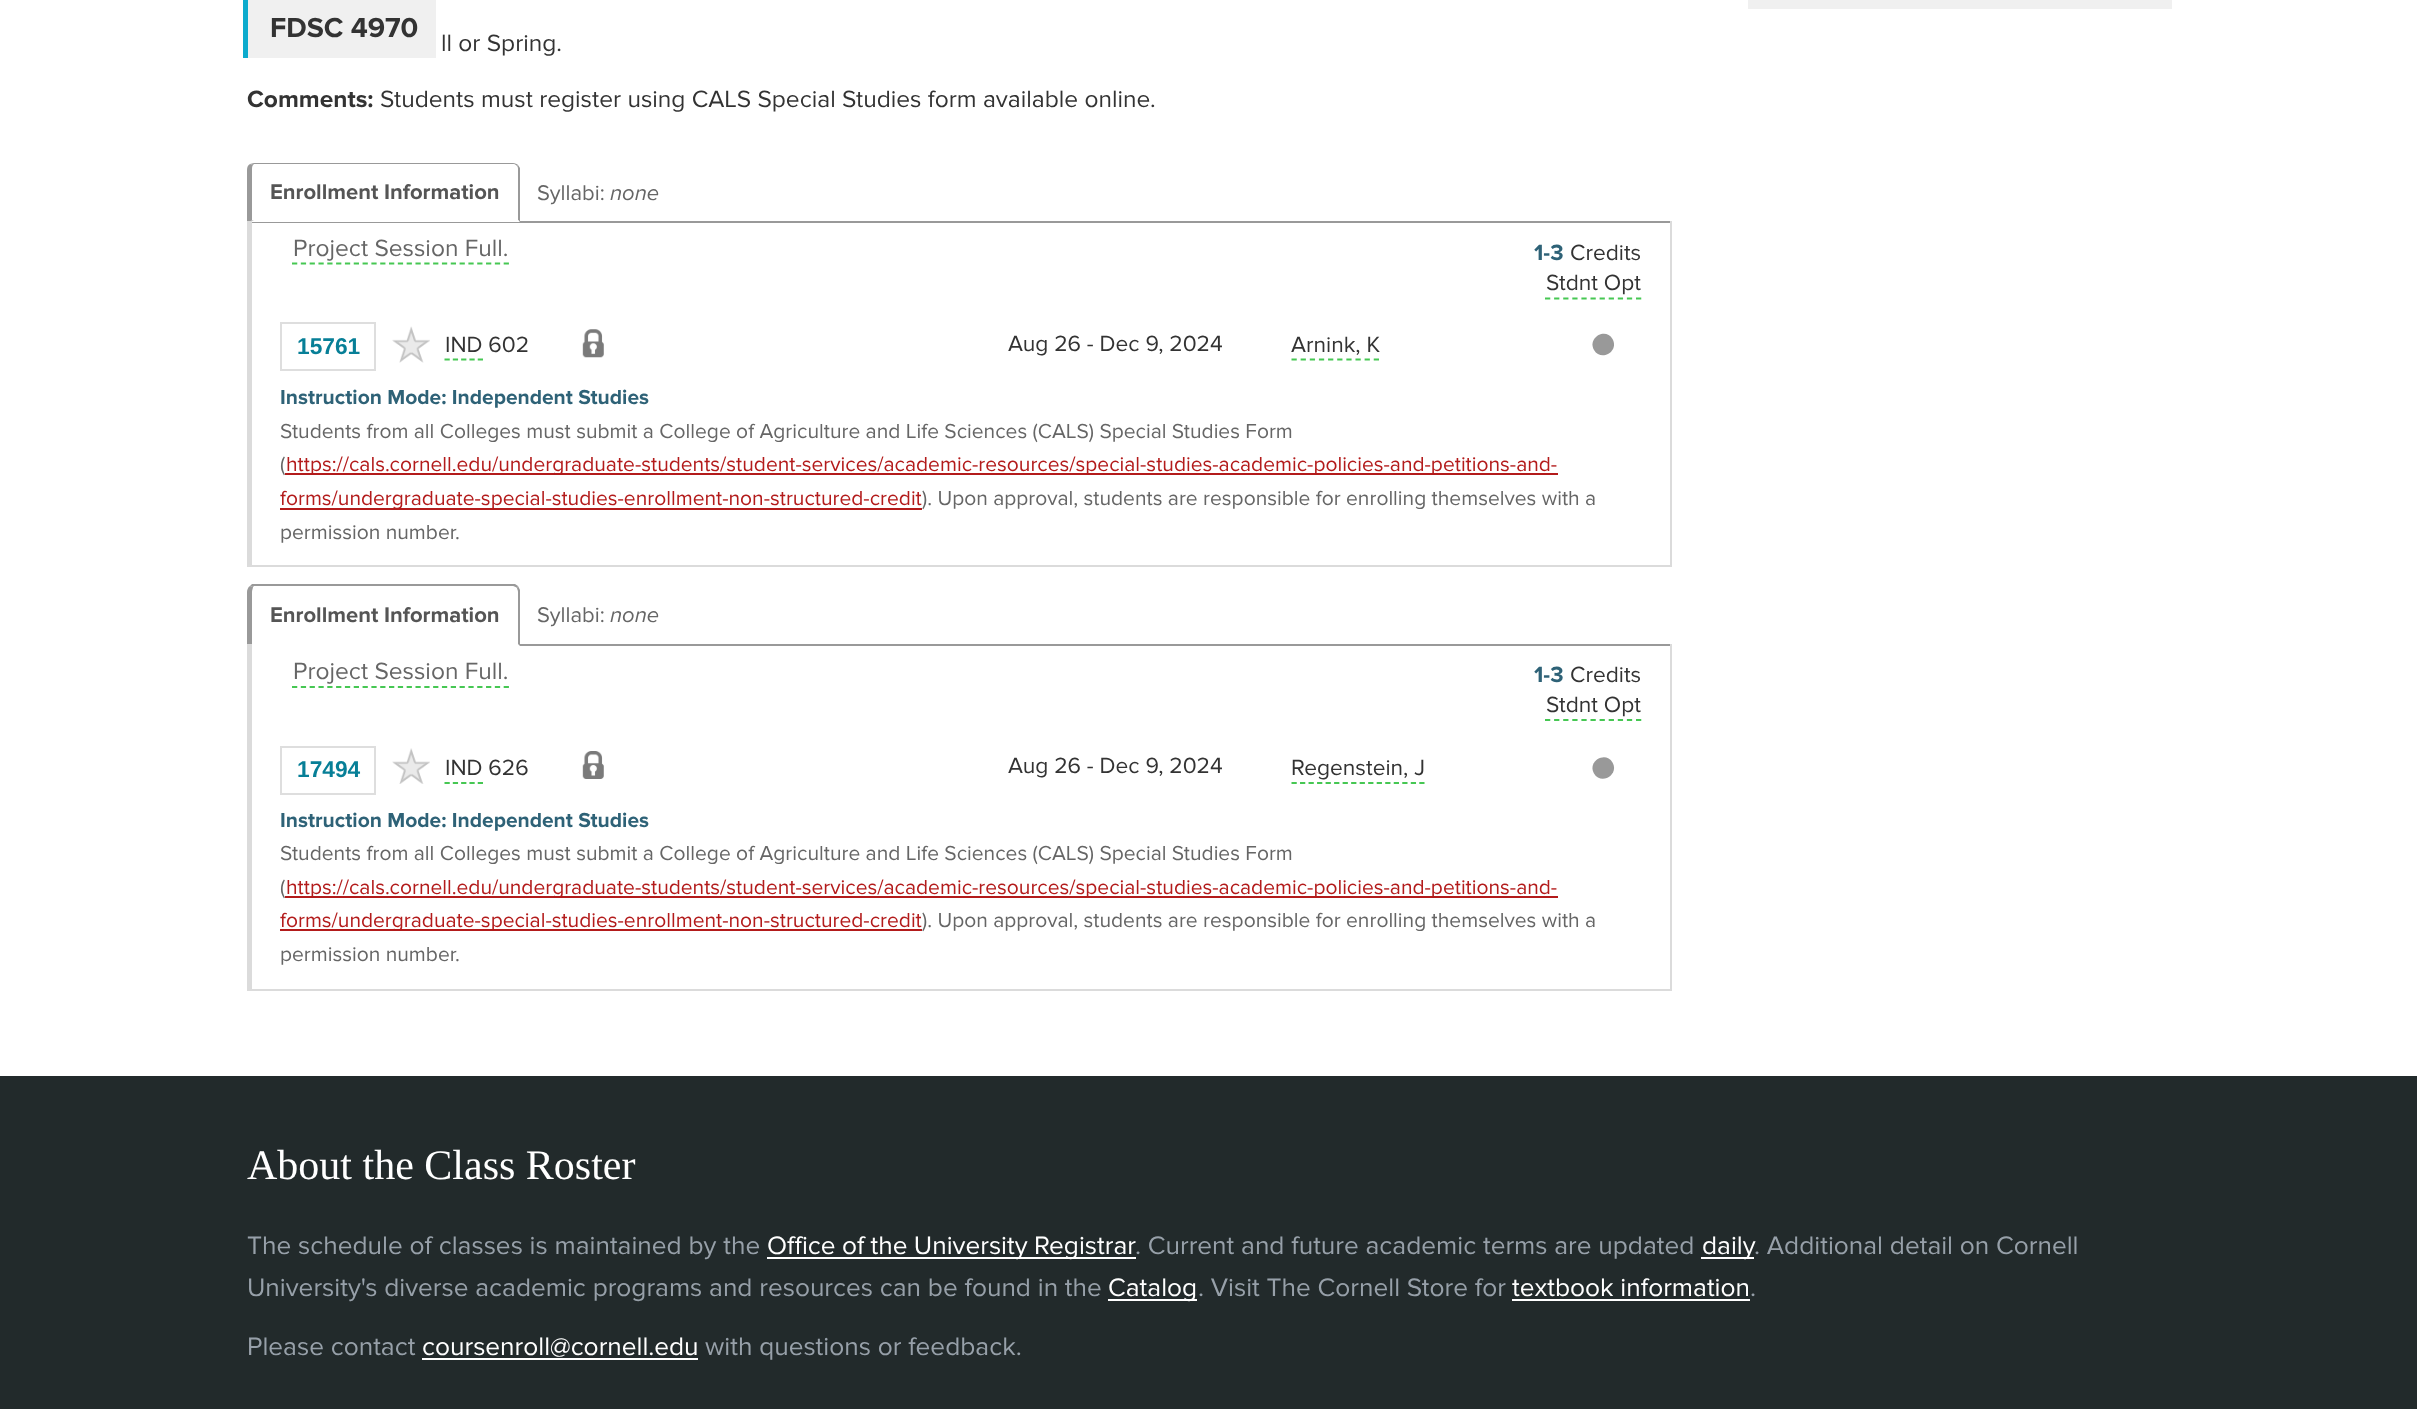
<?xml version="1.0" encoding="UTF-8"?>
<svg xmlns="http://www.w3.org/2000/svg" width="2417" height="1409">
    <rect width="100%" height="100%" fill="#222A2B"/>
    <rect x="0" y="0" width="2417" height="1076" fill="#FFFFFF"/>
    <rect x="1748" y="0" width="424" height="9" fill="#F0F0F0"/>
    <rect x="248" y="0" width="188" height="58" fill="#F0F0F0"/>
    <rect x="243" y="0" width="5" height="58" fill="#0CABCD"/>
    <text x="270" y="37" font-family="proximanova" font-size="28.5" font-weight="700" fill="#333333">FDSC 4970</text>
    <text x="441" y="51" font-family="proximanova" font-size="24.5" fill="#333333">ll or Spring.</text>
    <text x="247" y="107" font-family="proximanova" font-size="24.5" font-weight="700" fill="#333333">Comments:</text>
    <text x="380" y="107" font-family="proximanova" font-size="24.5" fill="#333333">Students must register using CALS Special Studies form available online.</text>
    <rect x="247" y="221" width="1424" height="2" fill="#999999"/>
    <path d="M 254 163 L 250 164 L 253 165 L 254 164 H 514 C 515 164 516 165 517 166 L 518 165 C 517 164 515 163 513 163 Z" fill="#999999"/>
    <path d="M 518 165 L 520 168 V 222 L 518 220 V 170 C 518 168 518 167 517 166 Z" fill="#999999"/>
    <path d="M 520 222 H 248 L 254 220 H 518 Z" fill="#FFFFFF"/>
    <path d="M 250 164 C 248 165 247 167 247 170 V 222 L 254 220 H 252 V 170 C 252 168 252 166 253 165 Z" fill="#999999"/>
    <text x="270" y="199" font-family="proximanova" font-size="22" font-weight="700" fill="#555555">Enrollment Information</text>
    <text x="537" y="200" font-family="proximanova" font-size="22" fill="#666666">Syllabi:</text>
    <text x="610" y="200" font-family="proximanova" font-size="22" font-style="italic" fill="#666666">none</text>
    <rect x="1670" y="221" width="2" height="346" fill="#DBDBDB"/>
    <rect x="247" y="565" width="1424" height="2" fill="#DBDBDB"/>
    <rect x="247" y="221" width="5" height="346" fill="#DBDBDB"/>
    <text x="293" y="256" font-family="proximanova" font-size="24.5" fill="#666666">Project Session Full.</text>
    <path d="M 292 263.5 H 509" fill="none" stroke="#46C753" stroke-width="1.8" stroke-dasharray="5.25 3.57"/>
    <text x="1534" y="260" font-family="proximanova" font-size="22.75" font-weight="700" fill="#2E6277">1-3</text>
    <text x="1570" y="260" font-family="proximanova" font-size="22.75" fill="#333333">Credits</text>
    <text x="1546" y="290" font-family="proximanova" font-size="22.75" fill="#333333">Stdnt Opt</text>
    <path d="M 1545 298.5 H 1641.5" fill="none" stroke="#46C753" stroke-width="1.8" stroke-dasharray="5.25 3.85"/>
    <rect x="281" y="323" width="94" height="47" fill="none" stroke="#DEDEDE" stroke-width="2"/>
    <text x="297" y="354" font-family="Liberation Sans" font-size="22.75" font-weight="700" fill="#077F97">15761</text>
    <image x="392" y="326" width="38" height="37" href="img_01.png"/>
    <text x="445" y="352" font-family="proximanova" font-size="22.75" fill="#333333">IND 602</text>
    <path d="M 444.5 359.5 H 483" fill="none" stroke="#46C753" stroke-width="1.8" stroke-dasharray="5.25 3.06"/>
    <image x="582" y="329" width="22" height="29" href="img_02.png"/>
    <text x="1008" y="351" font-family="proximanova" font-size="22.75" fill="#333333">Aug 26 - Dec 9, 2024</text>
    <text x="1291" y="352" font-family="proximanova" font-size="22.75" fill="#333333">Arnink, K</text>
    <path d="M 1291.5 359.5 H 1379" fill="none" stroke="#46C753" stroke-width="1.8" stroke-dasharray="5.25 3.89"/>
    <path d="M 1612.5 339 C 1619.5 351.5 1601 362 1594 350 C 1587 338 1605.5 327 1612.5 339 Z" fill="#999999"/>
    <text x="280" y="404" font-family="proximanova" font-size="21" font-weight="700" fill="#2E6277">Instruction Mode: Independent Studies</text>
    <text font-family="proximanova" font-size="21" fill="#666666">
        <tspan x="280" y="438">Students from all Colleges must submit a College of Agriculture and Life Sciences (CALS) Special Studies Form</tspan>
        <tspan x="280" y="471">(</tspan>
    </text>
    <rect x="285" y="473" width="1273" height="2" fill="#B31B1B"/>
    <text x="286" y="471" font-family="proximanova" font-size="21" fill="#B31B1B">https://cals.cornell.edu/undergraduate-students/student-services/academic-resources/special-studies-academic-policies-and-petitions-and-</text>
    <rect x="280" y="508" width="642" height="2" fill="#B31B1B"/>
    <text x="280" y="505" font-family="proximanova" font-size="21" fill="#B31B1B">forms/undergraduate-special-studies-enrollment-non-structured-credit</text>
    <text x="922" y="505" font-family="proximanova" font-size="21" fill="#666666">). Upon approval, students are responsible for enrolling themselves with a</text>
    <text x="280" y="539" font-family="proximanova" font-size="21" fill="#666666">permission number.</text>
    <rect x="518" y="644" width="1153" height="2" fill="#999999"/>
    <path d="M 254 586 L 253 587 L 250 586 L 252 584 H 515 L 518 586 L 517 588 C 516 587 514 586 513 586 Z" fill="#999999"/>
    <path d="M 518 586 L 520 590 V 646 L 518 644 V 592 C 518 590 517 589 517 588 Z" fill="#999999"/>
    <path d="M 520 646 H 247 L 252 644 H 518 Z" fill="#FFFFFF"/>
    <path d="M 247 646 V 592 C 247 590 248 587 250 586 L 253 587 C 253 588 252 590 252 592 V 644 Z" fill="#999999"/>
    <text x="270" y="622" font-family="proximanova" font-size="22" font-weight="700" fill="#555555">Enrollment Information</text>
    <text x="537" y="622" font-family="proximanova" font-size="22" fill="#666666">Syllabi:</text>
    <text x="610" y="622" font-family="proximanova" font-size="22" font-style="italic" fill="#666666">none</text>
    <rect x="1670" y="644" width="2" height="347" fill="#DBDBDB"/>
    <rect x="247" y="989" width="1424" height="2" fill="#DBDBDB"/>
    <rect x="247" y="644" width="5" height="347" fill="#DBDBDB"/>
    <text x="293" y="679" font-family="proximanova" font-size="24.5" fill="#666666">Project Session Full.</text>
    <path d="M 292 687 H 509" fill="none" stroke="#46C753" stroke-width="1.8" stroke-dasharray="5.25 3.57"/>
    <text x="1534" y="682" font-family="proximanova" font-size="22.75" font-weight="700" fill="#2E6277">1-3</text>
    <text x="1570" y="682" font-family="proximanova" font-size="22.75" fill="#333333">Credits</text>
    <text x="1546" y="712" font-family="proximanova" font-size="22.75" fill="#333333">Stdnt Opt</text>
    <path d="M 1545 720 H 1641.5" fill="none" stroke="#46C753" stroke-width="1.8" stroke-dasharray="5.25 3.85"/>
    <rect x="281" y="747" width="94" height="47" fill="none" stroke="#DEDEDE" stroke-width="2"/>
    <text x="297" y="777" font-family="Liberation Sans" font-size="22.75" font-weight="700" fill="#077F97">17494</text>
    <image x="392" y="748" width="38" height="36" href="img_03.png"/>
    <text x="445" y="775" font-family="proximanova" font-size="22.75" fill="#333333">IND 626</text>
    <path d="M 444.5 783 H 483" fill="none" stroke="#46C753" stroke-width="1.8" stroke-dasharray="5.25 3.06"/>
    <image x="582" y="751" width="22" height="28" href="img_04.png"/>
    <text x="1008" y="773" font-family="proximanova" font-size="22.75" fill="#333333">Aug 26 - Dec 9, 2024</text>
    <text x="1291" y="775" font-family="proximanova" font-size="22.75" fill="#333333">Regenstein, J</text>
    <path d="M 1291.5 783 H 1424.5" fill="none" stroke="#46C753" stroke-width="1.8" stroke-dasharray="5.25 3.27"/>
    <path d="M 1612.5 762.5 C 1619.5 775 1601 785.5 1594 773.5 C 1587 761.5 1605.5 750.5 1612.5 762.5 Z" fill="#999999"/>
    <text x="280" y="827" font-family="proximanova" font-size="21" font-weight="700" fill="#2E6277">Instruction Mode: Independent Studies</text>
    <text font-family="proximanova" font-size="21" fill="#666666">
        <tspan x="280" y="860">Students from all Colleges must submit a College of Agriculture and Life Sciences (CALS) Special Studies Form</tspan>
        <tspan x="280" y="894">(</tspan>
    </text>
    <rect x="285" y="896" width="1273" height="2" fill="#B31B1B"/>
    <text x="286" y="894" font-family="proximanova" font-size="21" fill="#B31B1B">https://cals.cornell.edu/undergraduate-students/student-services/academic-resources/special-studies-academic-policies-and-petitions-and-</text>
    <rect x="280" y="929" width="642" height="2" fill="#B31B1B"/>
    <text x="280" y="927" font-family="proximanova" font-size="21" fill="#B31B1B">forms/undergraduate-special-studies-enrollment-non-structured-credit</text>
    <text x="922" y="927" font-family="proximanova" font-size="21" fill="#666666">). Upon approval, students are responsible for enrolling themselves with a</text>
    <text x="280" y="961" font-family="proximanova" font-size="21" fill="#666666">permission number.</text>
    <text x="247" y="1179" font-family="Liberation Serif" font-size="42" fill="#FFFFFF">About the Class Roster</text>
    <text x="247" y="1254" font-family="proximanova" font-size="26.25" fill="#97A0A9">The schedule of classes is maintained by the</text>
    <rect x="767" y="1257" width="369" height="2" fill="#FFFFFF"/>
    <text x="767" y="1254" word-spacing="-0.5" font-family="proximanova" font-size="26.25" fill="#FFFFFF">Office of the University Registrar</text>
    <text x="1135" y="1254" font-family="proximanova" font-size="26.25" fill="#97A0A9">. Current and future academic terms are updated</text>
    <rect x="1701" y="1257" width="53" height="2" fill="#FFFFFF"/>
    <text x="1702" y="1254" font-family="proximanova" font-size="26.25" fill="#FFFFFF">daily</text>
    <text x="1754" y="1254" font-family="proximanova" font-size="26.25" fill="#97A0A9">. Additional detail on Cornell</text>
    <text x="247" y="1296" font-family="proximanova" font-size="26.25" fill="#97A0A9">University's diverse academic programs and resources can be found in the</text>
    <rect x="1108" y="1299" width="89" height="2" fill="#FFFFFF"/>
    <text x="1108" y="1296" font-family="proximanova" font-size="26.25" fill="#FFFFFF">Catalog</text>
    <text x="1198" y="1296" font-family="proximanova" font-size="26.25" fill="#97A0A9">. Visit The Cornell Store for</text>
    <text x="1512" y="1296" font-family="proximanova" font-size="26.25" fill="#FFFFFF">textbook information</text>
    <rect x="1512" y="1299" width="238" height="2" fill="#FFFFFF"/>
    <text x="1750" y="1296" font-family="proximanova" font-size="26.25" fill="#97A0A9">.</text>
    <text x="247" y="1355" font-family="proximanova" font-size="26.25" fill="#97A0A9">Please contact</text>
    <text x="422" y="1355" font-family="proximanova" font-size="26.25" fill="#FFFFFF">coursenroll@cornell.edu</text>
    <rect x="422" y="1358" width="276" height="2" fill="#FFFFFF"/>
    <text x="705" y="1355" font-family="proximanova" font-size="26.25" fill="#97A0A9">with questions or feedback.</text>
</svg>
